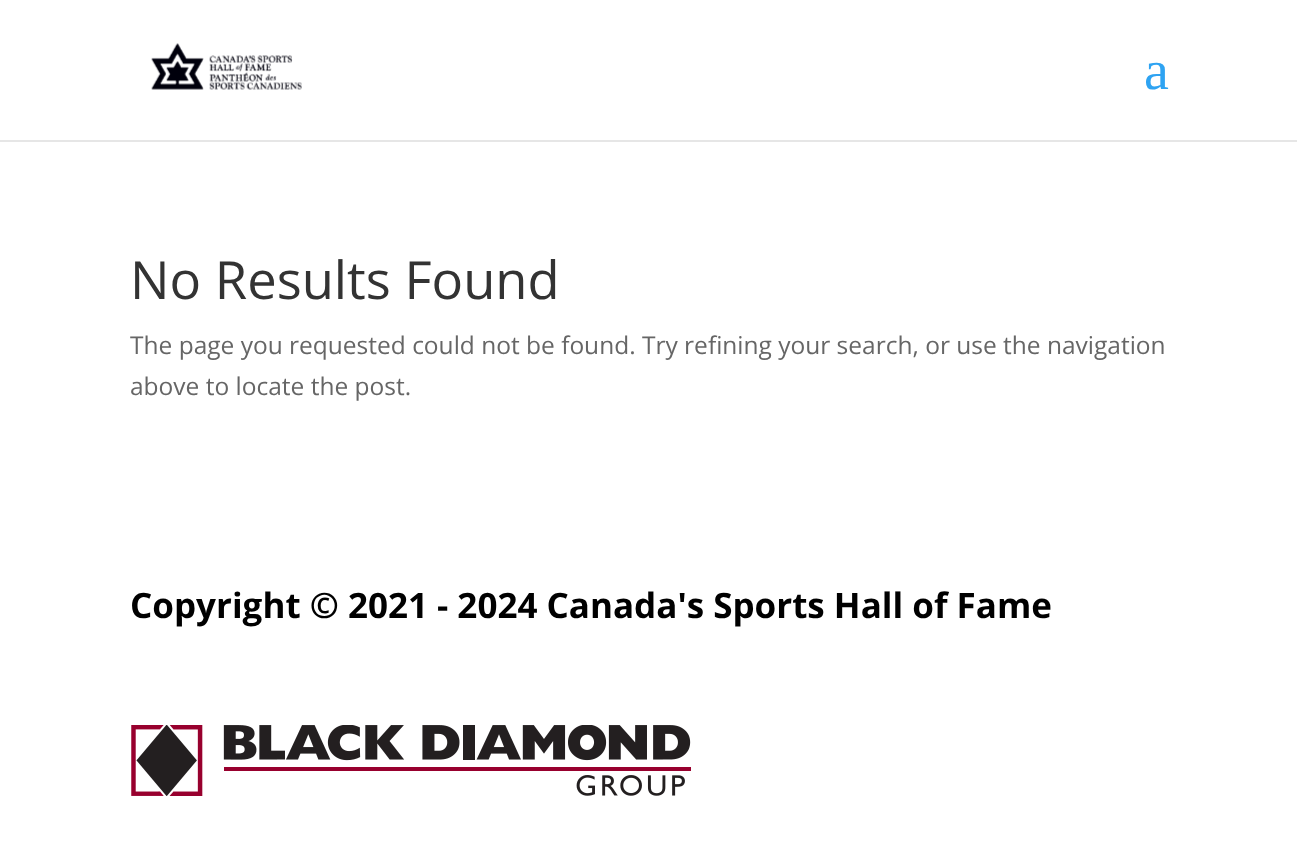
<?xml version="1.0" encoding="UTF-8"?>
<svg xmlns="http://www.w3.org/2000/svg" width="1297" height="846">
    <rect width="100%" height="100%" fill="#FFFFFF"/>
    <path d="M 0 140 V 142 H 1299 V 2 H 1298 V 140 Z" fill="#E6E6E6"/>
    <image x="151" y="43" width="151" height="47" href="img_01.png"/>
    <text x="1144" y="89" font-family="Liberation Serif" font-size="56" fill="#2EA3F2">a</text>
    <text x="130" y="299" font-family="Open Sans" font-size="52.5" fill="#333333">No Results Found</text>
    <text font-family="Open Sans" font-size="24.5" fill="#666666">
        <tspan x="130" y="354">The page you requested could not be found. Try refining your search, or use the navigation</tspan>
        <tspan x="130" y="395">above to locate the post.</tspan>
    </text>
    <text x="130" y="618" font-family="Open Sans" font-size="35" font-weight="700" fill="#000000">Copyright © 2021 - 2024 Canada's Sports Hall of Fame</text>
    <image x="131" y="725" width="560" height="71" href="img_02.png"/>
</svg>
